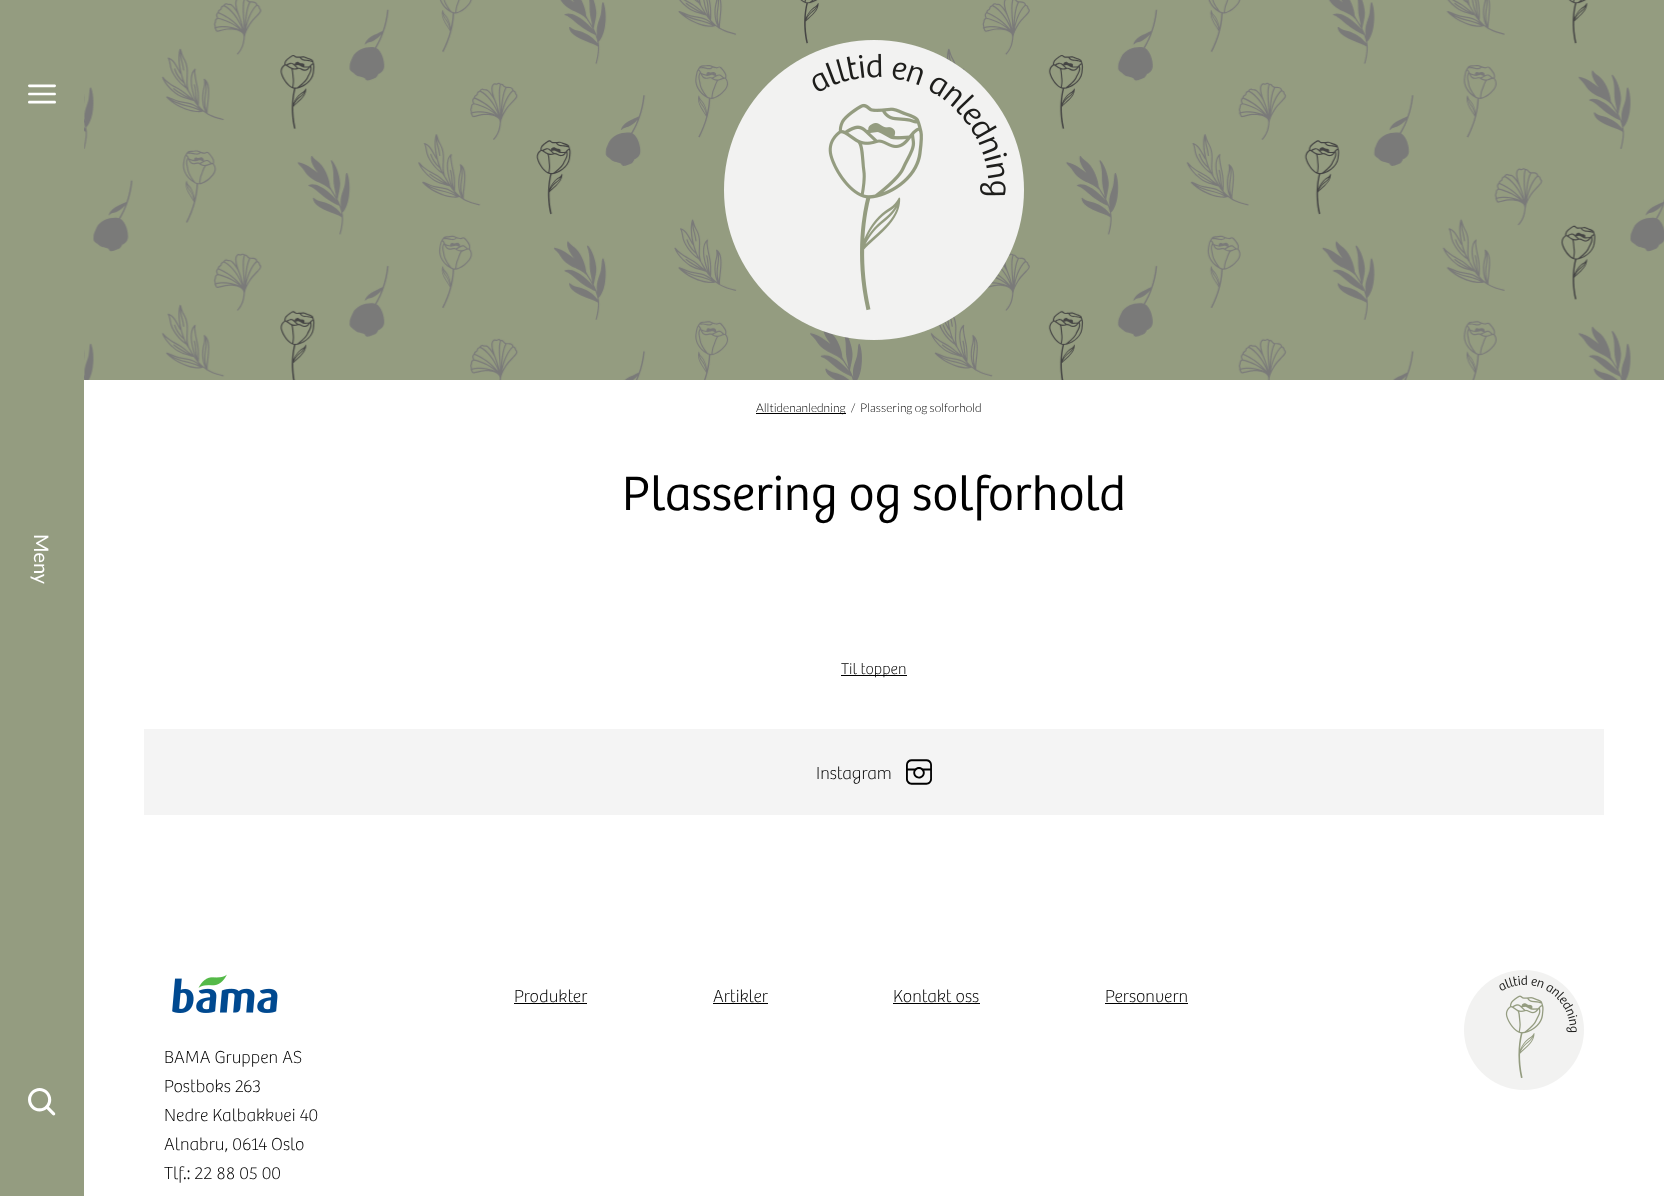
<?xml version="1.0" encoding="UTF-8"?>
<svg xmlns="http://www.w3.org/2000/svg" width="1664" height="1196">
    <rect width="100%" height="100%" fill="#FFFFFF"/>
    <rect x="84" y="0" width="1580" height="380" fill="#949C80"/>
    <image x="84" y="0" width="1580" height="380" href="img_01.png"/>
    <image x="724" y="40" width="300" height="300" href="img_02.png"/>
    <rect x="756" y="413" width="90" height="1" fill="#000000"/>
    <text x="756" y="412" font-family="Lato" font-size="12" font-weight="300" fill="#000000">Alltidenanledning</text>
    <text x="851" y="412" font-family="Lato" font-size="12" font-weight="300" fill="#000000">/</text>
    <text x="860" y="412" font-family="Lato" font-size="12" font-weight="300" fill="#000000">Plassering og solforhold</text>
    <text x="622" y="510" font-family="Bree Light" font-size="50" font-weight="300" fill="#000000">Plassering og solforhold</text>
    <rect x="0" y="0" width="84" height="1196" fill="#949C80"/>
    <image x="28" y="84" width="28" height="20" href="img_03.png"/>
    <text x="34" y="534" transform="rotate(90 34 534)" font-family="Lato" font-size="20" fill="#FFFFFF">Meny</text>
    <image x="28" y="1088" width="28" height="28" href="img_04.png"/>
    <rect x="841" y="675" width="66" height="1" fill="#000000"/>
    <text x="841" y="674" font-family="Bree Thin" font-size="16" font-weight="100" fill="#000000">Til toppen</text>
    <rect x="144" y="729" width="1460" height="86" fill="#F4F4F4"/>
    <text x="816" y="779" font-family="Bree Thin" font-size="18" font-weight="100" fill="#000000">Instagram</text>
    <image x="906" y="759" width="26" height="26" href="img_05.png"/>
    <text x="514" y="1002" font-family="Bree Thin" font-size="18" font-weight="100" fill="#000000">Produkter</text>
    <rect x="514" y="1003" width="73" height="1" fill="#000000"/>
    <text x="713" y="1002" font-family="Bree Thin" font-size="18" font-weight="100" fill="#000000">Artikler</text>
    <rect x="713" y="1003" width="55" height="1" fill="#000000"/>
    <text x="893" y="1002" font-family="Bree Thin" font-size="18" font-weight="100" fill="#000000">Kontakt oss</text>
    <rect x="893" y="1003" width="87" height="1" fill="#000000"/>
    <text x="1105" y="1002" font-family="Bree Thin" font-size="18" font-weight="100" fill="#000000">Personvern</text>
    <rect x="1105" y="1003" width="83" height="1" fill="#000000"/>
    <image x="1464" y="970" width="120" height="120" href="img_06.png"/>
    <image x="172" y="974" width="106" height="39" href="img_07.png"/>
    <text font-family="Bree Thin" font-size="18" font-weight="100" fill="#000000">
        <tspan x="164" y="1063">BAMA Gruppen AS</tspan>
        <tspan x="164" y="1092">Postboks 263</tspan>
        <tspan x="164" y="1121">Nedre Kalbakkvei 40</tspan>
        <tspan x="164" y="1150">Alnabru, 0614 Oslo</tspan>
        <tspan x="164" y="1179">Tlf.: 22 88 05 00</tspan>
    </text>
</svg>
